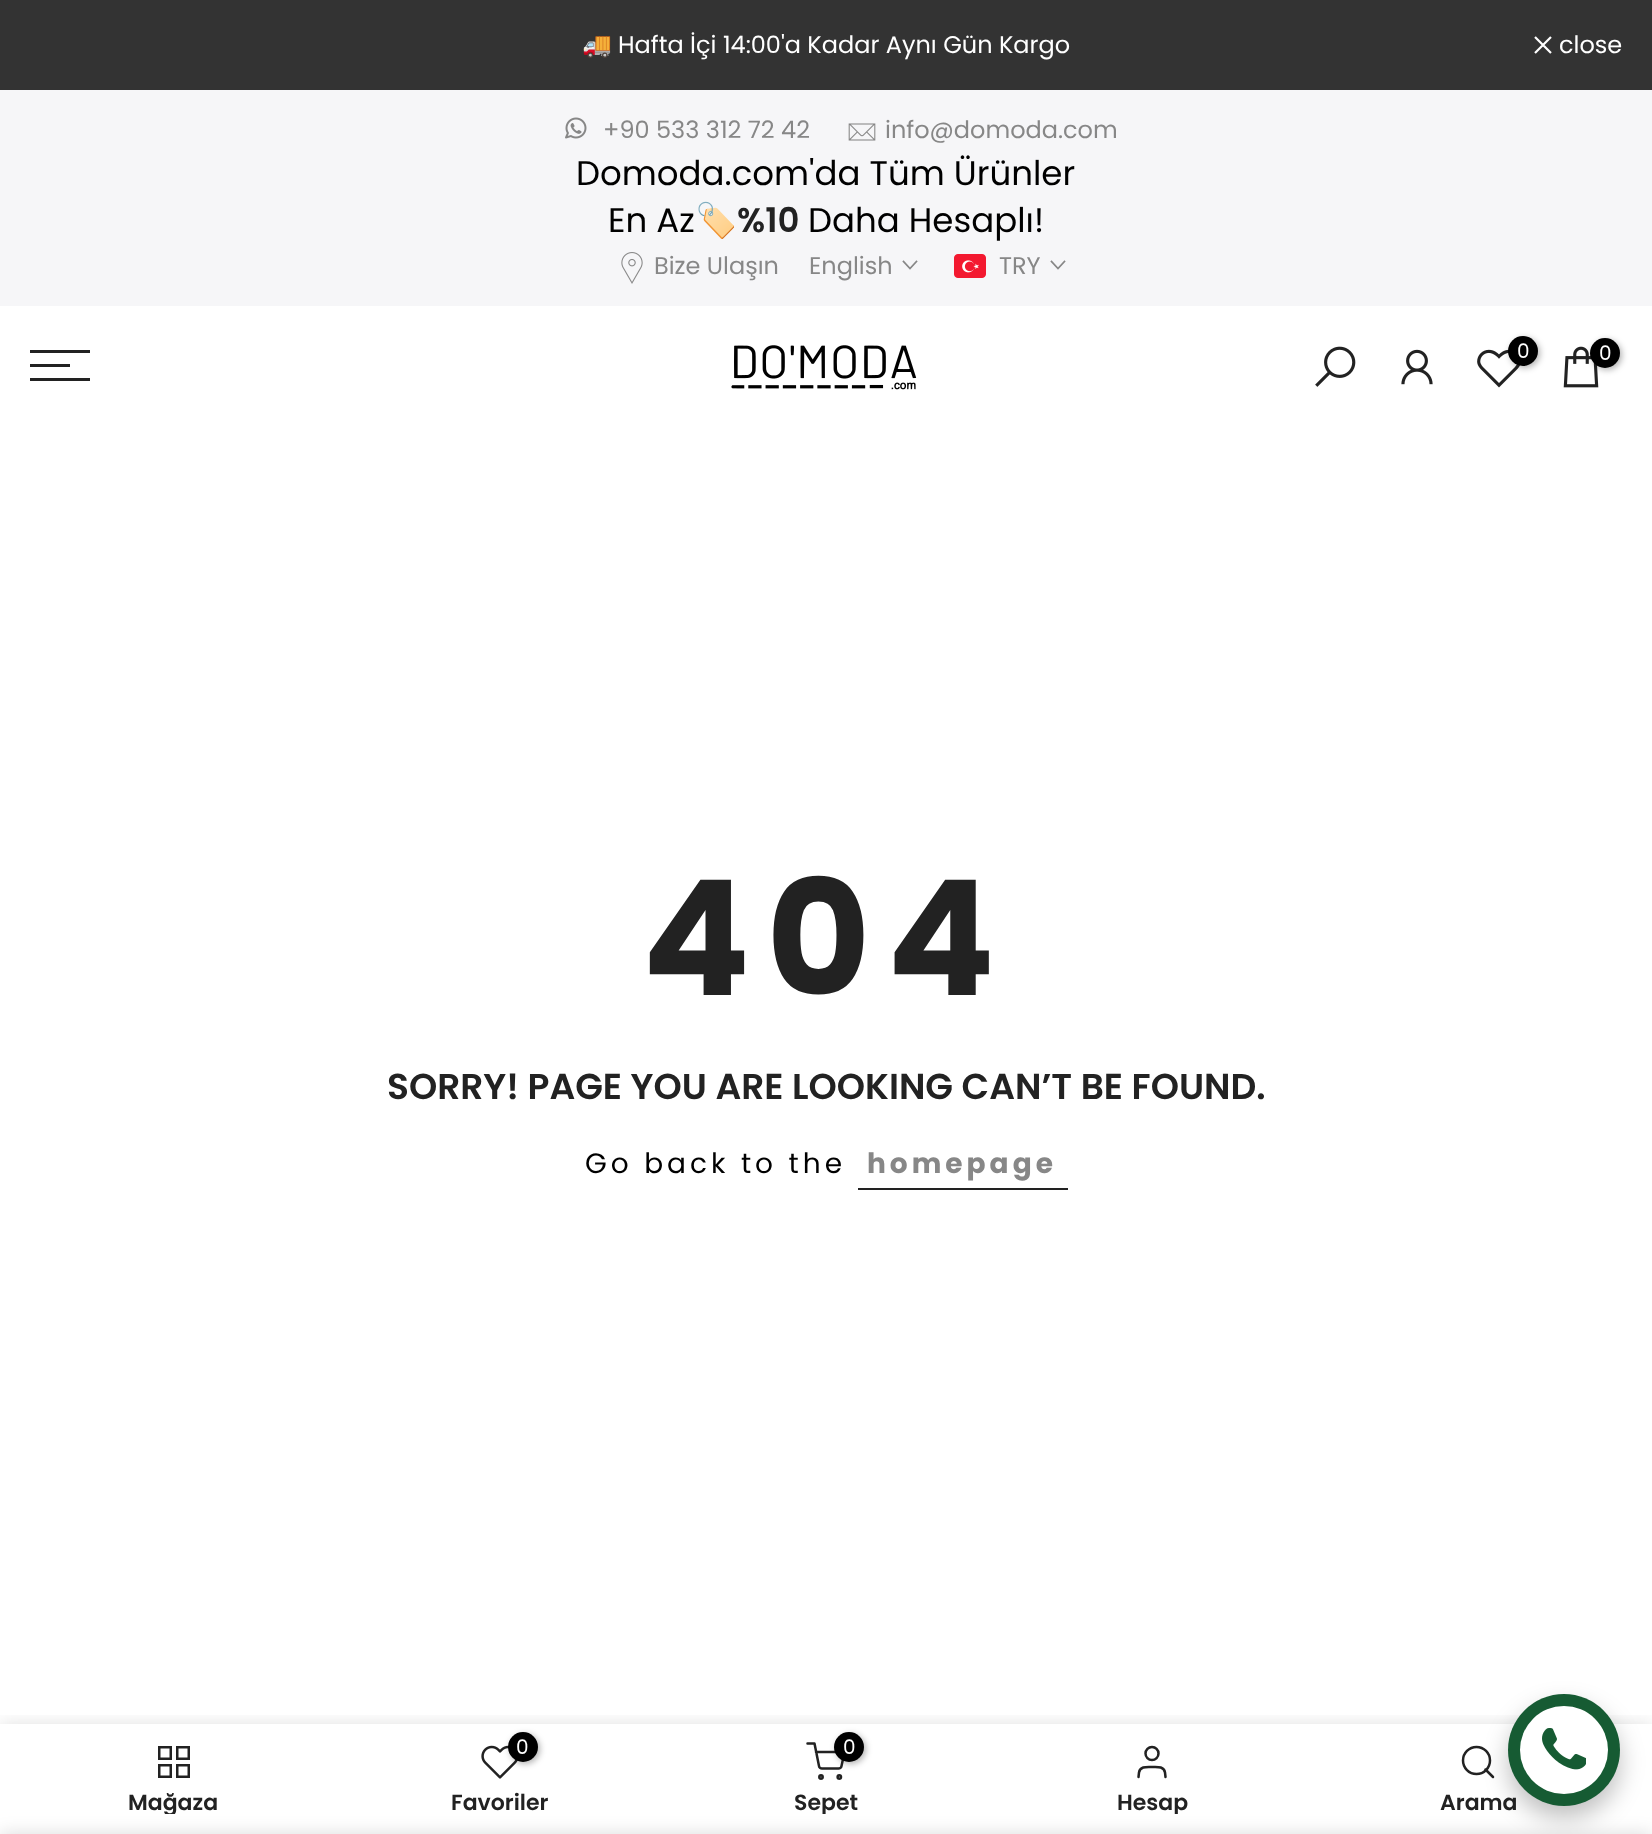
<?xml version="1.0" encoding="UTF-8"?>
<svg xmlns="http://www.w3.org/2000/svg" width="1652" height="1834">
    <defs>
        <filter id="blur1" x="-50%" y="-200%" width="200%" height="500%"><feGaussianBlur stdDeviation="3"/></filter>
        <clipPath id="clip1"><rect x="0" y="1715" width="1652" height="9"/></clipPath>
        <filter id="blur2" x="-50%" y="-200%" width="200%" height="500%"><feGaussianBlur stdDeviation="9"/></filter>
        <clipPath id="clip2"><rect x="30" y="1792" width="286" height="22"/></clipPath>
        <clipPath id="clip3"><rect x="682" y="1792" width="288" height="22"/></clipPath>
        <clipPath id="clip4"><rect x="1010" y="1792" width="286" height="22"/></clipPath>
        <filter id="blur3" x="-50%" y="-200%" width="200%" height="500%"><feGaussianBlur stdDeviation="12"/></filter>
    </defs>
    <rect width="100%" height="100%" fill="#FFFFFF"/>
    <rect x="0" y="0" width="1652" height="90" fill="#333333"/>
    <text x="582" y="53" font-family="Noto Color Emoji" font-size="24" fill="#FFFFFF">🚚</text>
    <text x="618" y="53" font-family="Poppins" font-size="24" fill="#FFFFFF">Hafta İçi 14:00'a Kadar Aynı Gün Kargo</text>
    <path d="M 1551 37 L 1535 53 M 1551 53 L 1535 37" fill="none" stroke="#FFFFFF" stroke-width="2.2"/>
    <text x="1559" y="53" font-family="Poppins" font-size="24" fill="#FFFFFF">close</text>
    <rect x="0" y="90" width="1652" height="216" fill="#F6F6F8"/>
    <image x="565" y="117" width="22" height="22" href="img_01.png"/>
    <text x="603" y="138" font-family="Poppins" font-size="24" fill="#878787">+90 533 312 72 42</text>
    <image x="848" y="123" width="28" height="18" href="img_02.png"/>
    <text x="885" y="138" font-family="Poppins" font-size="24" fill="#878787">info@domoda.com</text>
    <text x="576" y="185" font-family="Poppins" font-size="34" fill="#000000">Domoda.com'da Tüm Ürünler</text>
    <text x="608" y="232" font-family="Poppins" font-size="34" fill="#000000">En Az</text>
    <text x="695" y="232" font-family="'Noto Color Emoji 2'" font-size="34" fill="#000000">🏷️</text>
    <text x="737" y="232" font-family="Poppins" font-size="34" font-weight="600" fill="#222222">%10</text>
    <text x="808" y="232" font-family="Poppins" font-size="34" fill="#000000">Daha Hesaplı!</text>
    <image x="621" y="252" width="22" height="32" href="img_03.png"/>
    <text x="654" y="274" font-family="Poppins" font-size="24" fill="#878787">Bize Ulaşın</text>
    <text x="809" y="274" font-family="Poppins" font-size="24" fill="#878787">English</text>
    <path d="M 916.5 261.5 L 910 268.5 L 903.5 261.5" fill="none" stroke="#878787" stroke-width="1.7" stroke-linecap="square"/>
    <image x="954" y="254" width="32" height="24" href="img_04.png"/>
    <text x="999" y="274" font-family="Poppins" font-size="24" fill="#878787">TRY</text>
    <path d="M 1064.5 261.5 L 1058 268.5 L 1051.5 261.5" fill="none" stroke="#878787" stroke-width="1.7" stroke-linecap="square"/>
    <rect x="30" y="350" width="60" height="3" fill="#222222"/>
    <rect x="30" y="364" width="40" height="3" fill="#222222"/>
    <rect x="30" y="378" width="60" height="3" fill="#222222"/>
    <image x="731" y="345" width="186" height="45" href="img_05.png"/>
    <image x="1315" y="346" width="41" height="41" href="img_06.png"/>
    <image x="1401" y="349" width="32" height="36" href="img_07.png"/>
    <image x="1477" y="349" width="43" height="39" href="img_08.png"/>
    <rect x="1510" y="338" width="30" height="30" rx="15" fill="#000000" fill-opacity="0.3" filter="url(#blur1)"/>
    <circle cx="1523" cy="351" r="15" fill="#000000"/>
    <text x="1517" y="358" font-family="Poppins" font-size="20" fill="#FFFFFF">0</text>
    <image x="1563" y="346" width="36" height="42" href="img_09.png"/>
    <rect x="1592" y="340" width="30" height="30" rx="15" fill="#000000" fill-opacity="0.3" filter="url(#blur1)"/>
    <circle cx="1605" cy="353" r="15" fill="#000000"/>
    <text x="1599" y="360" font-family="Poppins" font-size="20" fill="#FFFFFF">0</text>
    <text x="642" y="995" font-family="Poppins" font-size="160" font-weight="700" letter-spacing="16" fill="#222222">404</text>
    <text x="387" y="1099" font-family="Poppins" font-size="36" font-weight="600" fill="#222222">SORRY! PAGE YOU ARE LOOKING CAN’T BE FOUND.</text>
    <text x="585" y="1173" font-family="Poppins" font-size="28" letter-spacing="4" fill="#000000">Go back to the</text>
    <text x="867" y="1173" font-family="Poppins" font-size="28" font-weight="700" letter-spacing="4" fill="#878787">homepage</text>
    <rect x="858" y="1188" width="210" height="2" fill="#222222"/>
    <g clip-path="url(#clip1)">
        <rect x="0" y="1724" width="1652" height="110" fill="#000000" fill-opacity="0.12" filter="url(#blur2)"/>
    </g>
    <rect x="159.25" y="1747.25" width="11.5" height="11.5" fill="none" stroke="#222222" stroke-width="2.5"/>
    <rect x="177.25" y="1747.25" width="11.5" height="11.5" fill="none" stroke="#222222" stroke-width="2.5"/>
    <rect x="159.25" y="1765.25" width="11.5" height="11.5" fill="none" stroke="#222222" stroke-width="2.5"/>
    <rect x="177.25" y="1765.25" width="11.5" height="11.5" fill="none" stroke="#222222" stroke-width="2.5"/>
    <g clip-path="url(#clip2)">
        <text x="128" y="1810" font-family="Poppins" font-size="22" font-weight="600" fill="#222222">Mağaza</text>
    </g>
    <image x="481" y="1745" width="37" height="34" href="img_10.png"/>
    <rect x="510" y="1734" width="30" height="30" rx="15" fill="#000000" fill-opacity="0.3" filter="url(#blur1)"/>
    <circle cx="523" cy="1747" r="15" fill="#000000"/>
    <text x="516" y="1754" font-family="Poppins" font-size="20" fill="#FFFFFF">0</text>
    <text x="451" y="1810" font-family="Poppins" font-size="22" font-weight="600" fill="#222222">Favoriler</text>
    <path d="M 807.5 1743.5 H 814.5 L 819 1766 C 819 1767.5 820.5 1768.5 822 1768.5 H 838.5 C 840 1768.5 841.5 1767.5 841.5 1766 L 844.5 1752 H 816" fill="none" stroke="#222222" stroke-width="2.5" stroke-linecap="round" stroke-linejoin="round"/>
    <rect x="836" y="1734" width="30" height="30" rx="15" fill="#000000" fill-opacity="0.3" filter="url(#blur1)"/>
    <circle cx="849" cy="1747" r="15" fill="#000000"/>
    <text x="843" y="1754" font-family="Poppins" font-size="20" fill="#FFFFFF">0</text>
    <circle cx="821" cy="1777" r="1.7" fill="none" stroke="#222222" stroke-width="2.5"/>
    <circle cx="839.3" cy="1777" r="1.7" fill="none" stroke="#222222" stroke-width="2.5"/>
    <g clip-path="url(#clip3)">
        <text x="794" y="1810" font-family="Poppins" font-size="22" font-weight="600" fill="#222222">Sepet</text>
    </g>
    <circle cx="1152" cy="1753.5" r="6.5" fill="none" stroke="#222222" stroke-width="2.5"/>
    <path d="M 1165.5 1777 L 1165 1772.5 C 1164 1766 1157 1767 1152 1767 C 1147 1767 1140 1766 1139 1772.5 L 1138.5 1777" fill="none" stroke="#222222" stroke-width="2.5" stroke-linecap="round" stroke-linejoin="round"/>
    <g clip-path="url(#clip4)">
        <text x="1117" y="1810" font-family="Poppins" font-size="22" font-weight="600" fill="#222222">Hesap</text>
    </g>
    <circle cx="1476.5" cy="1760.5" r="13.5" fill="none" stroke="#222222" stroke-width="2.5"/>
    <path d="M 1493 1777 L 1485.5 1769.5" fill="none" stroke="#222222" stroke-width="2.5" stroke-linecap="round" stroke-linejoin="round"/>
    <text x="1440" y="1810" font-family="Poppins" font-size="22" font-weight="600" fill="#222222">Arama</text>
    <rect x="1508" y="1706" width="112" height="112" rx="56" fill="#000000" fill-opacity="0.25" filter="url(#blur3)"/>
    <circle cx="1564" cy="1750" r="56" fill="#165B33"/>
    <circle cx="1564" cy="1750" r="44" fill="#FFFFFF"/>
    <image x="1542" y="1728" width="44" height="42" href="img_11.png"/>
    <rect x="0" y="1834" width="1652" height="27" fill="#000000" fill-opacity="0.14" filter="url(#blur2)"/>
</svg>
